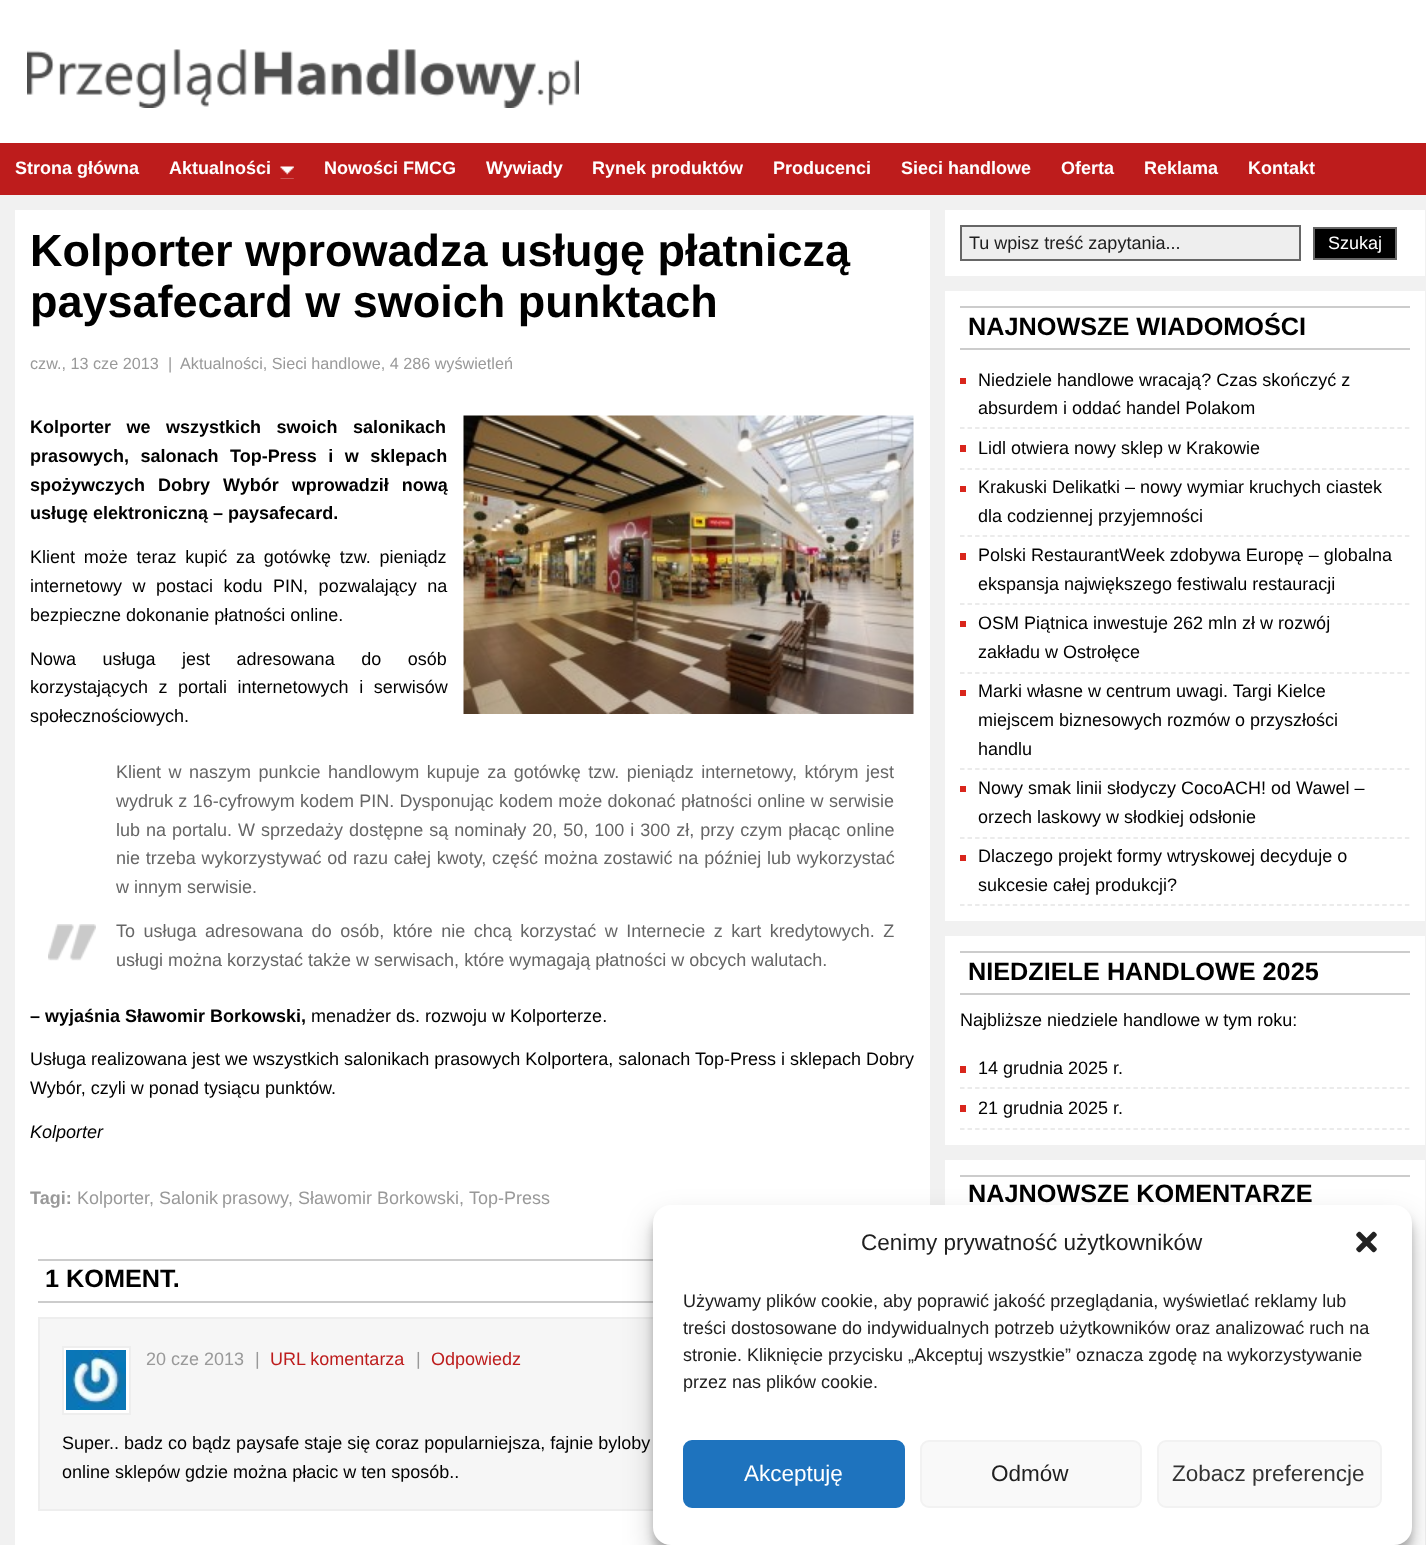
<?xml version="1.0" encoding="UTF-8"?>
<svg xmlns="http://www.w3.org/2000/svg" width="1426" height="1545">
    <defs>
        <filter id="blur1" x="-50%" y="-200%" width="200%" height="500%"><feGaussianBlur stdDeviation="4.5"/></filter>
        <filter id="blur2" x="-50%" y="-200%" width="200%" height="500%"><feGaussianBlur stdDeviation="15"/></filter>
    </defs>
    <rect width="100%" height="100%" fill="#FFFFFF"/>
    <image x="27" y="49" width="552" height="59" href="img_01.png"/>
    <rect x="0" y="143" width="1426" height="52" fill="#BD1C1C"/>
    <text x="15" y="174" font-family="Liberation Sans" font-size="18" font-weight="700" fill="#FFFFFF">Strona główna</text>
    <text x="169" y="174" font-family="Liberation Sans" font-size="18" font-weight="700" fill="#FFFFFF">Aktualności</text>
    <image x="280" y="166" width="14" height="13" href="img_02.png"/>
    <text x="324" y="174" font-family="Liberation Sans" font-size="18" font-weight="700" fill="#FFFFFF">Nowości FMCG</text>
    <text x="486" y="174" font-family="Liberation Sans" font-size="18" font-weight="700" fill="#FFFFFF">Wywiady</text>
    <text x="592" y="174" font-family="Liberation Sans" font-size="18" font-weight="700" fill="#FFFFFF">Rynek produktów</text>
    <text x="773" y="174" font-family="Liberation Sans" font-size="18" font-weight="700" fill="#FFFFFF">Producenci</text>
    <text x="901" y="174" font-family="Liberation Sans" font-size="18" font-weight="700" fill="#FFFFFF">Sieci handlowe</text>
    <text x="1061" y="174" font-family="Liberation Sans" font-size="18" font-weight="700" fill="#FFFFFF">Oferta</text>
    <text x="1144" y="174" font-family="Liberation Sans" font-size="18" font-weight="700" fill="#FFFFFF">Reklama</text>
    <text x="1248" y="174" font-family="Liberation Sans" font-size="18" font-weight="700" fill="#FFFFFF">Kontakt</text>
    <rect x="0" y="195" width="1426" height="1350" fill="#F1F1F1"/>
    <rect x="15" y="210" width="915" height="1335" fill="#FFFFFF"/>
    <text font-family="Liberation Sans" font-size="45" font-weight="700" fill="#000000">
        <tspan x="30" y="266">Kolporter wprowadza usługę płatniczą</tspan>
        <tspan x="30" y="317">paysafecard w swoich punktach</tspan>
    </text>
    <text x="30" y="369" font-family="Liberation Sans" font-size="16.2" fill="#999999">czw., 13 cze 2013</text>
    <text x="168" y="369" font-family="Liberation Sans" font-size="16.2" fill="#999999">|</text>
    <text x="180" y="369" font-family="Liberation Sans" font-size="16.2" fill="#999999">Aktualności, Sieci handlowe, 4 286 wyświetleń</text>
    <text x="30" y="433" word-spacing="10.5" font-family="Liberation Sans" font-size="18" font-weight="700" fill="#000000">Kolporter we wszystkich swoich salonikach</text>
    <image x="463" y="415" width="451" height="299" href="img_03.png"/>
    <text font-family="Liberation Sans" font-size="18" font-weight="700" fill="#000000">
        <tspan x="30" y="462" word-spacing="6.5">prasowych, salonach Top-Press i w sklepach</tspan>
        <tspan x="30" y="491" word-spacing="8">spożywczych Dobry Wybór wprowadził nową</tspan>
        <tspan x="30" y="519">usługę elektroniczną – paysafecard.</tspan>
    </text>
    <text font-family="Liberation Sans" font-size="18" fill="#000000">
        <tspan x="30" y="563" word-spacing="3.75">Klient może teraz kupić za gotówkę tzw. pieniądz</tspan>
        <tspan x="30" y="592" word-spacing="5.5">internetowy w postaci kodu PIN, pozwalający na</tspan>
        <tspan x="30" y="621">bezpieczne dokonanie płatności online.</tspan>
    </text>
    <text font-family="Liberation Sans" font-size="18" fill="#000000">
        <tspan x="30" y="665" word-spacing="21.5">Nowa usługa jest adresowana do osób</tspan>
        <tspan x="30" y="693" word-spacing="5.5">korzystających z portali internetowych i serwisów</tspan>
        <tspan x="30" y="722">społecznościowych.</tspan>
    </text>
    <image x="48" y="924" width="48" height="37" href="img_04.png"/>
    <text font-family="Liberation Sans" font-size="18" fill="#666666">
        <tspan x="116" y="778" word-spacing="2.5">Klient w naszym punkcie handlowym kupuje za gotówkę tzw. pieniądz internetowy, którym jest</tspan>
        <tspan x="116" y="807" word-spacing="0.3">wydruk z 16-cyfrowym kodem PIN. Dysponując kodem może dokonać płatności online w serwisie</tspan>
        <tspan x="116" y="836" word-spacing="1">lub na portalu. W sprzedaży dostępne są nominały 20, 50, 100 i 300 zł, przy czym płacąc online</tspan>
        <tspan x="116" y="864" word-spacing="0.75">nie trzeba wykorzystywać od razu całej kwoty, część można zostawić na później lub wykorzystać</tspan>
        <tspan x="116" y="893">w innym serwisie.</tspan>
    </text>
    <text font-family="Liberation Sans" font-size="18" fill="#666666">
        <tspan x="116" y="937" word-spacing="3.5">To usługa adresowana do osób, które nie chcą korzystać w Internecie z kart kredytowych. Z</tspan>
        <tspan x="116" y="966">usługi można korzystać także w serwisach, które wymagają płatności w obcych walutach.</tspan>
    </text>
    <text x="30" y="1022" font-family="Liberation Sans" font-size="18" font-weight="700" fill="#000000">– wyjaśnia Sławomir Borkowski,</text>
    <text x="311" y="1022" font-family="Liberation Sans" font-size="18" fill="#000000">menadżer ds. rozwoju w Kolporterze.</text>
    <text font-family="Liberation Sans" font-size="18" fill="#000000">
        <tspan x="30" y="1065">Usługa realizowana jest we wszystkich salonikach prasowych Kolportera, salonach Top-Press i sklepach Dobry</tspan>
        <tspan x="30" y="1094">Wybór, czyli w ponad tysiącu punktów.</tspan>
    </text>
    <text x="30" y="1138" font-family="Liberation Sans" font-size="18" font-style="italic" fill="#000000">Kolporter</text>
    <text x="30" y="1204" font-family="Liberation Sans" font-size="18" font-weight="700" fill="#999999">Tagi:</text>
    <text x="77" y="1204" font-family="Liberation Sans" font-size="18" fill="#999999">Kolporter</text>
    <text x="149" y="1204" font-family="Liberation Sans" font-size="18" fill="#999999">,</text>
    <text x="159" y="1204" word-spacing="-1" font-family="Liberation Sans" font-size="18" fill="#999999">Salonik prasowy</text>
    <text x="288" y="1204" font-family="Liberation Sans" font-size="18" fill="#999999">, Sławomir Borkowski,</text>
    <text x="469" y="1204" font-family="Liberation Sans" font-size="18" fill="#999999">Top-Press</text>
    <rect x="38" y="1259" width="615" height="2" fill="#CCCCCC"/>
    <rect x="38" y="1301" width="615" height="2" fill="#CCCCCC"/>
    <text x="45" y="1287" font-family="Liberation Sans" font-size="25.25" font-weight="700" fill="#000000">1 KOMENT.</text>
    <rect x="40" y="1319" width="613" height="190" fill="#F6F6F6"/>
    <rect x="39" y="1318" width="868" height="192" fill="none" stroke="#EEEEEE" stroke-width="2"/>
    <rect x="63" y="1347" width="67" height="67" fill="#FFFFFF" stroke="#EEEEEE" stroke-width="2"/>
    <image x="66" y="1350" width="60" height="60" href="img_05.png"/>
    <text x="146" y="1365" font-family="Liberation Sans" font-size="18" fill="#999999">20 cze 2013</text>
    <text x="255" y="1365" font-family="Liberation Sans" font-size="18" fill="#999999">|</text>
    <text x="270" y="1365" font-family="Liberation Sans" font-size="18" fill="#BD1C1C">URL komentarza</text>
    <text x="416" y="1365" font-family="Liberation Sans" font-size="18" fill="#999999">|</text>
    <text x="431" y="1365" font-family="Liberation Sans" font-size="18" fill="#BD1C1C">Odpowiedz</text>
    <text font-family="Liberation Sans" font-size="18" fill="#000000">
        <tspan x="62" y="1449">Super.. badz co bądz paysafe staje się coraz popularniejsza, fajnie byloby</tspan>
        <tspan x="62" y="1478">online sklepów gdzie można płacic w ten sposób..</tspan>
    </text>
    <rect x="945" y="210" width="480" height="66" fill="#FFFFFF"/>
    <rect x="961" y="226" width="339" height="34" fill="#EEEEEE" stroke="#666666" stroke-width="2"/>
    <text x="969" y="249" font-family="Liberation Sans" font-size="18" fill="#202020">Tu wpisz treść zapytania...</text>
    <rect x="1314" y="228" width="82" height="31" fill="#000000" stroke="#666666" stroke-width="2"/>
    <text x="1328" y="249" font-family="Liberation Sans" font-size="18" fill="#FFFFFF">Szukaj</text>
    <rect x="945" y="291" width="480" height="630" fill="#FFFFFF"/>
    <rect x="960" y="306" width="450" height="2" fill="#CCCCCC"/>
    <rect x="960" y="348" width="450" height="2" fill="#CCCCCC"/>
    <text x="968" y="335" font-family="Liberation Sans" font-size="25.25" font-weight="700" fill="#000000">NAJNOWSZE WIADOMOŚCI</text>
    <rect x="960" y="378" width="6" height="6" fill="#D9261C"/>
    <path d="M 960 428 H 1410" fill="none" stroke="#E5E5E5" stroke-width="1.5" stroke-dasharray="4.5 3.04"/>
    <text font-family="Liberation Sans" font-size="18" fill="#000000">
        <tspan x="978" y="386">Niedziele handlowe wracają? Czas skończyć z</tspan>
        <tspan x="978" y="414">absurdem i oddać handel Polakom</tspan>
    </text>
    <rect x="960" y="445" width="6" height="7" fill="#D9261C"/>
    <path d="M 960 469 H 1410" fill="none" stroke="#E5E5E5" stroke-width="1.5" stroke-dasharray="4.5 3.04"/>
    <text x="978" y="454" font-family="Liberation Sans" font-size="18" fill="#000000">Lidl otwiera nowy sklep w Krakowie</text>
    <rect x="960" y="486" width="6" height="6" fill="#D9261C"/>
    <path d="M 960 536 H 1410" fill="none" stroke="#E5E5E5" stroke-width="1.5" stroke-dasharray="4.5 3.04"/>
    <text font-family="Liberation Sans" font-size="18" fill="#000000">
        <tspan x="978" y="493">Krakuski Delikatki – nowy wymiar kruchych ciastek</tspan>
        <tspan x="978" y="522">dla codziennej przyjemności</tspan>
    </text>
    <rect x="960" y="553" width="6" height="7" fill="#D9261C"/>
    <path d="M 960 604 H 1410" fill="none" stroke="#E5E5E5" stroke-width="1.5" stroke-dasharray="4.5 3.04"/>
    <text font-family="Liberation Sans" font-size="18" fill="#000000">
        <tspan x="978" y="561">Polski RestaurantWeek zdobywa Europę – globalna</tspan>
        <tspan x="978" y="590">ekspansja największego festiwalu restauracji</tspan>
    </text>
    <rect x="960" y="621" width="6" height="6" fill="#D9261C"/>
    <path d="M 960 673 H 1410" fill="none" stroke="#E5E5E5" stroke-width="1.5" stroke-dasharray="4.5 3.04"/>
    <text font-family="Liberation Sans" font-size="18" fill="#000000">
        <tspan x="978" y="629">OSM Piątnica inwestuje 262 mln zł w rozwój</tspan>
        <tspan x="978" y="658">zakładu w Ostrołęce</tspan>
    </text>
    <rect x="960" y="690" width="6" height="6" fill="#D9261C"/>
    <path d="M 960 769 H 1410" fill="none" stroke="#E5E5E5" stroke-width="1.5" stroke-dasharray="4.5 3.04"/>
    <text font-family="Liberation Sans" font-size="18" fill="#000000">
        <tspan x="978" y="697">Marki własne w centrum uwagi. Targi Kielce</tspan>
        <tspan x="978" y="726">miejscem biznesowych rozmów o przyszłości</tspan>
        <tspan x="978" y="755">handlu</tspan>
    </text>
    <rect x="960" y="786" width="6" height="6" fill="#D9261C"/>
    <path d="M 960 838 H 1410" fill="none" stroke="#E5E5E5" stroke-width="1.5" stroke-dasharray="4.5 3.04"/>
    <text font-family="Liberation Sans" font-size="18" fill="#000000">
        <tspan x="978" y="794">Nowy smak linii słodyczy CocoACH! od Wawel –</tspan>
        <tspan x="978" y="823">orzech laskowy w słodkiej odsłonie</tspan>
    </text>
    <rect x="960" y="855" width="6" height="6" fill="#D9261C"/>
    <path d="M 960 905 H 1410" fill="none" stroke="#E5E5E5" stroke-width="1.5" stroke-dasharray="4.5 3.04"/>
    <text font-family="Liberation Sans" font-size="18" fill="#000000">
        <tspan x="978" y="862">Dlaczego projekt formy wtryskowej decyduje o</tspan>
        <tspan x="978" y="891">sukcesie całej produkcji?</tspan>
    </text>
    <rect x="945" y="936" width="480" height="209" fill="#FFFFFF"/>
    <rect x="960" y="951" width="450" height="2" fill="#CCCCCC"/>
    <rect x="960" y="993" width="450" height="2" fill="#CCCCCC"/>
    <text x="968" y="980" font-family="Liberation Sans" font-size="25.25" font-weight="700" fill="#000000">NIEDZIELE HANDLOWE 2025</text>
    <text x="960" y="1026" font-family="Liberation Sans" font-size="18" fill="#000000">Najbliższe niedziele handlowe w tym roku:</text>
    <rect x="960" y="1066" width="6" height="7" fill="#D9261C"/>
    <path d="M 960 1088 H 1410" fill="none" stroke="#E5E5E5" stroke-width="1.5" stroke-dasharray="4.5 3.04"/>
    <text x="978" y="1074" font-family="Liberation Sans" font-size="18" fill="#000000">14 grudnia 2025 r.</text>
    <rect x="960" y="1105" width="6" height="7" fill="#D9261C"/>
    <path d="M 960 1129 H 1410" fill="none" stroke="#E5E5E5" stroke-width="1.5" stroke-dasharray="4.5 3.04"/>
    <text x="978" y="1114" font-family="Liberation Sans" font-size="18" fill="#000000">21 grudnia 2025 r.</text>
    <rect x="945" y="1160" width="480" height="385" fill="#FFFFFF"/>
    <rect x="960" y="1175" width="450" height="2" fill="#CCCCCC"/>
    <text x="968" y="1202" font-family="Liberation Sans" font-size="25.25" font-weight="700" fill="#000000">NAJNOWSZE KOMENTARZE</text>
    <rect x="653" y="1214" width="759" height="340" rx="18" fill="#000000" fill-opacity="0.23" filter="url(#blur1)"/>
    <rect x="653" y="1220" width="759" height="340" rx="18" fill="#000000" fill-opacity="0.19" filter="url(#blur2)"/>
    <rect x="653" y="1205" width="759" height="340" rx="18" fill="#FFFFFF"/>
    <text x="861" y="1250" font-family="Liberation Sans" font-size="22.5" fill="#202020">Cenimy prywatność użytkowników</text>
    <image x="1356" y="1231" width="21" height="22" href="img_06.png"/>
    <text font-family="Liberation Sans" font-size="18" fill="#202020">
        <tspan x="683" y="1307">Używamy plików cookie, aby poprawić jakość przeglądania, wyświetlać reklamy lub</tspan>
        <tspan x="683" y="1334">treści dostosowane do indywidualnych potrzeb użytkowników oraz analizować ruch na</tspan>
        <tspan x="683" y="1361">stronie. Kliknięcie przycisku „Akceptuj wszystkie” oznacza zgodę na wykorzystywanie</tspan>
        <tspan x="683" y="1388">przez nas plików cookie.</tspan>
    </text>
    <rect x="684" y="1441" width="220" height="66" rx="8" fill="#1E73BE" stroke="#1E73BE" stroke-width="2"/>
    <text x="744" y="1481" font-family="Liberation Sans" font-size="22.5" fill="#FFFFFF">Akceptuję</text>
    <rect x="921" y="1441" width="220" height="66" rx="8" fill="#F9F9F9" stroke="#F2F2F2" stroke-width="2"/>
    <text x="991" y="1481" font-family="Liberation Sans" font-size="22.5" fill="#202020">Odmów</text>
    <rect x="1158" y="1441" width="223" height="66" rx="8" fill="#F9F9F9" stroke="#F2F2F2" stroke-width="2"/>
    <text x="1172" y="1481" font-family="Liberation Sans" font-size="22.5" fill="#333333">Zobacz preferencje</text>
</svg>
